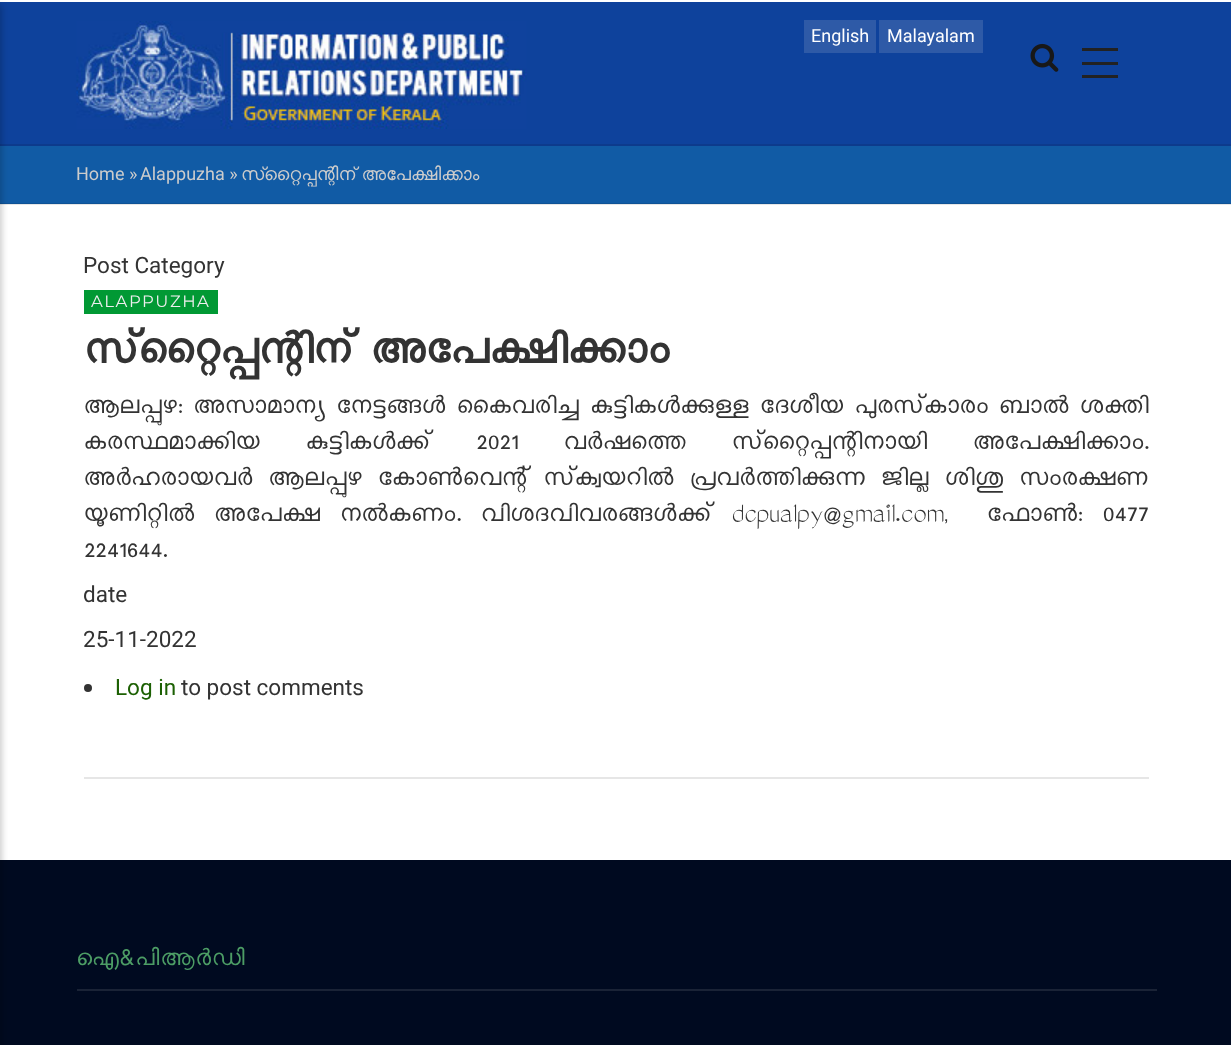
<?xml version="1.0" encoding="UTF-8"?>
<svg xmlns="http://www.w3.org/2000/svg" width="1231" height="1045">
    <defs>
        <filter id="blur1" x="-50%" y="-200%" width="200%" height="500%"><feGaussianBlur stdDeviation="3"/></filter>
    </defs>
    <rect width="100%" height="100%" fill="#FFFFFF"/>
    <rect x="0" y="204" width="1231" height="1" fill="#E6E6E6"/>
    <rect x="0" y="2" width="1231" height="142" fill="#0E429C"/>
    <rect x="0" y="144" width="1231" height="2" fill="#0D3B8C"/>
    <rect x="0" y="146" width="1231" height="57" fill="#115BA5"/>
    <rect x="0" y="203" width="1231" height="1" fill="#0F5295"/>
    <rect x="0" y="860" width="1231" height="185" fill="#000A20"/>
    <rect x="-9" y="5" width="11" height="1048" fill="#000000" fill-opacity="0.2" filter="url(#blur1)"/>
    <rect x="1082" y="48" width="36" height="3" fill="#222222"/>
    <rect x="1082" y="62" width="36" height="3" fill="#222222"/>
    <rect x="1082" y="75" width="36" height="3" fill="#222222"/>
    <image x="1030" y="43" width="29" height="29" href="img_01.png"/>
    <image x="76" y="21" width="451" height="108" href="img_02.png"/>
    <rect x="804" y="20" width="72" height="33" fill="#2E5AA7"/>
    <text x="811" y="42" font-family="Roboto" font-size="18" fill="#FFFFFF">English</text>
    <rect x="879" y="20" width="104" height="33" fill="#2E5AA7"/>
    <text x="887" y="42" font-family="Roboto" font-size="18" fill="#FFFFFF">Malayalam</text>
    <text x="76" y="180" font-family="Roboto" font-size="18" fill="#CCCCCC">Home »</text>
    <text x="140" y="180" font-family="Roboto" font-size="18" fill="#CCCCCC">Alappuzha »</text>
    <text x="241" y="180" word-spacing="-1" font-family="FreeSans" font-size="18" fill="#CCCCCC">സ്‌റ്റൈപ്പന്റിന് അപേക്ഷിക്കാം</text>
    <text x="83" y="273" font-family="Roboto" font-size="22.5" fill="#333333">Post Category</text>
    <rect x="84" y="290" width="134" height="24" fill="#019934"/>
    <text x="91" y="307" font-family="Montserrat" font-size="16.5" letter-spacing="1.5" fill="#EEEEEE">ALAPPUZHA</text>
    <text x="83" y="363" font-family="'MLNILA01'" font-size="52.5" font-weight="700" fill="#333333">സ്‌റ്റൈപ്പന്റിന് അപേക്ഷിക്കാം</text>
    <text font-family="'MLNILA01'" font-size="30" fill="#333333" xml:space="preserve"><tspan x="83" y="413" word-spacing="0.75">ആലപ്പുഴ: അസാമാന്യ നേട്ടങ്ങള്‍ കൈവരിച്ച കുട്ടികള്‍ക്കുള്ള ദേശീയ പുരസ്‌കാരം ബാല്‍ ശക്തി</tspan><tspan x="83" y="449" word-spacing="35.5">കരസ്ഥമാക്കിയ കുട്ടികള്‍ക്ക് 2021 വര്‍ഷത്തെ സ്‌റ്റൈപ്പന്റിനായി അപേക്ഷിക്കാം.</tspan><tspan x="83" y="485" word-spacing="5.5">അര്‍ഹരായവര്‍ ആലപ്പുഴ കോണ്‍വെന്റ് സ്‌ക്വയറില്‍ പ്രവര്‍ത്തിക്കുന്ന ജില്ല ശിശു സംരക്ഷണ</tspan><tspan x="83" y="521" word-spacing="9.5">യൂണിറ്റില്‍ അപേക്ഷ നല്‍കണം. വിശദവിവരങ്ങള്‍ക്ക് dcpualpy@gmail.com,  ഫോണ്‍: 0477</tspan><tspan x="83" y="557">2241644.</tspan></text>
    <text x="83" y="602" font-family="Roboto" font-size="22.5" fill="#333333">date</text>
    <text x="83" y="647" font-family="Roboto" font-size="22.5" fill="#333333">25-11-2022</text>
    <circle cx="88" cy="688" r="4" fill="#333333"/>
    <text x="115" y="695" font-family="Roboto" font-size="22.5" fill="#1C6003">Log in</text>
    <text x="181" y="695" font-family="Roboto" font-size="22.5" fill="#333333">to post comments</text>
    <rect x="84" y="777" width="1065" height="2" fill="#E6E6E6"/>
    <rect x="77" y="989" width="1080" height="2" fill="#1A2336"/>
    <text x="76" y="965" font-family="FreeSans" font-size="22.5" letter-spacing="0.75" fill="#4C9D65">ഐ&amp;പിആര്‍ഡി</text>
</svg>
